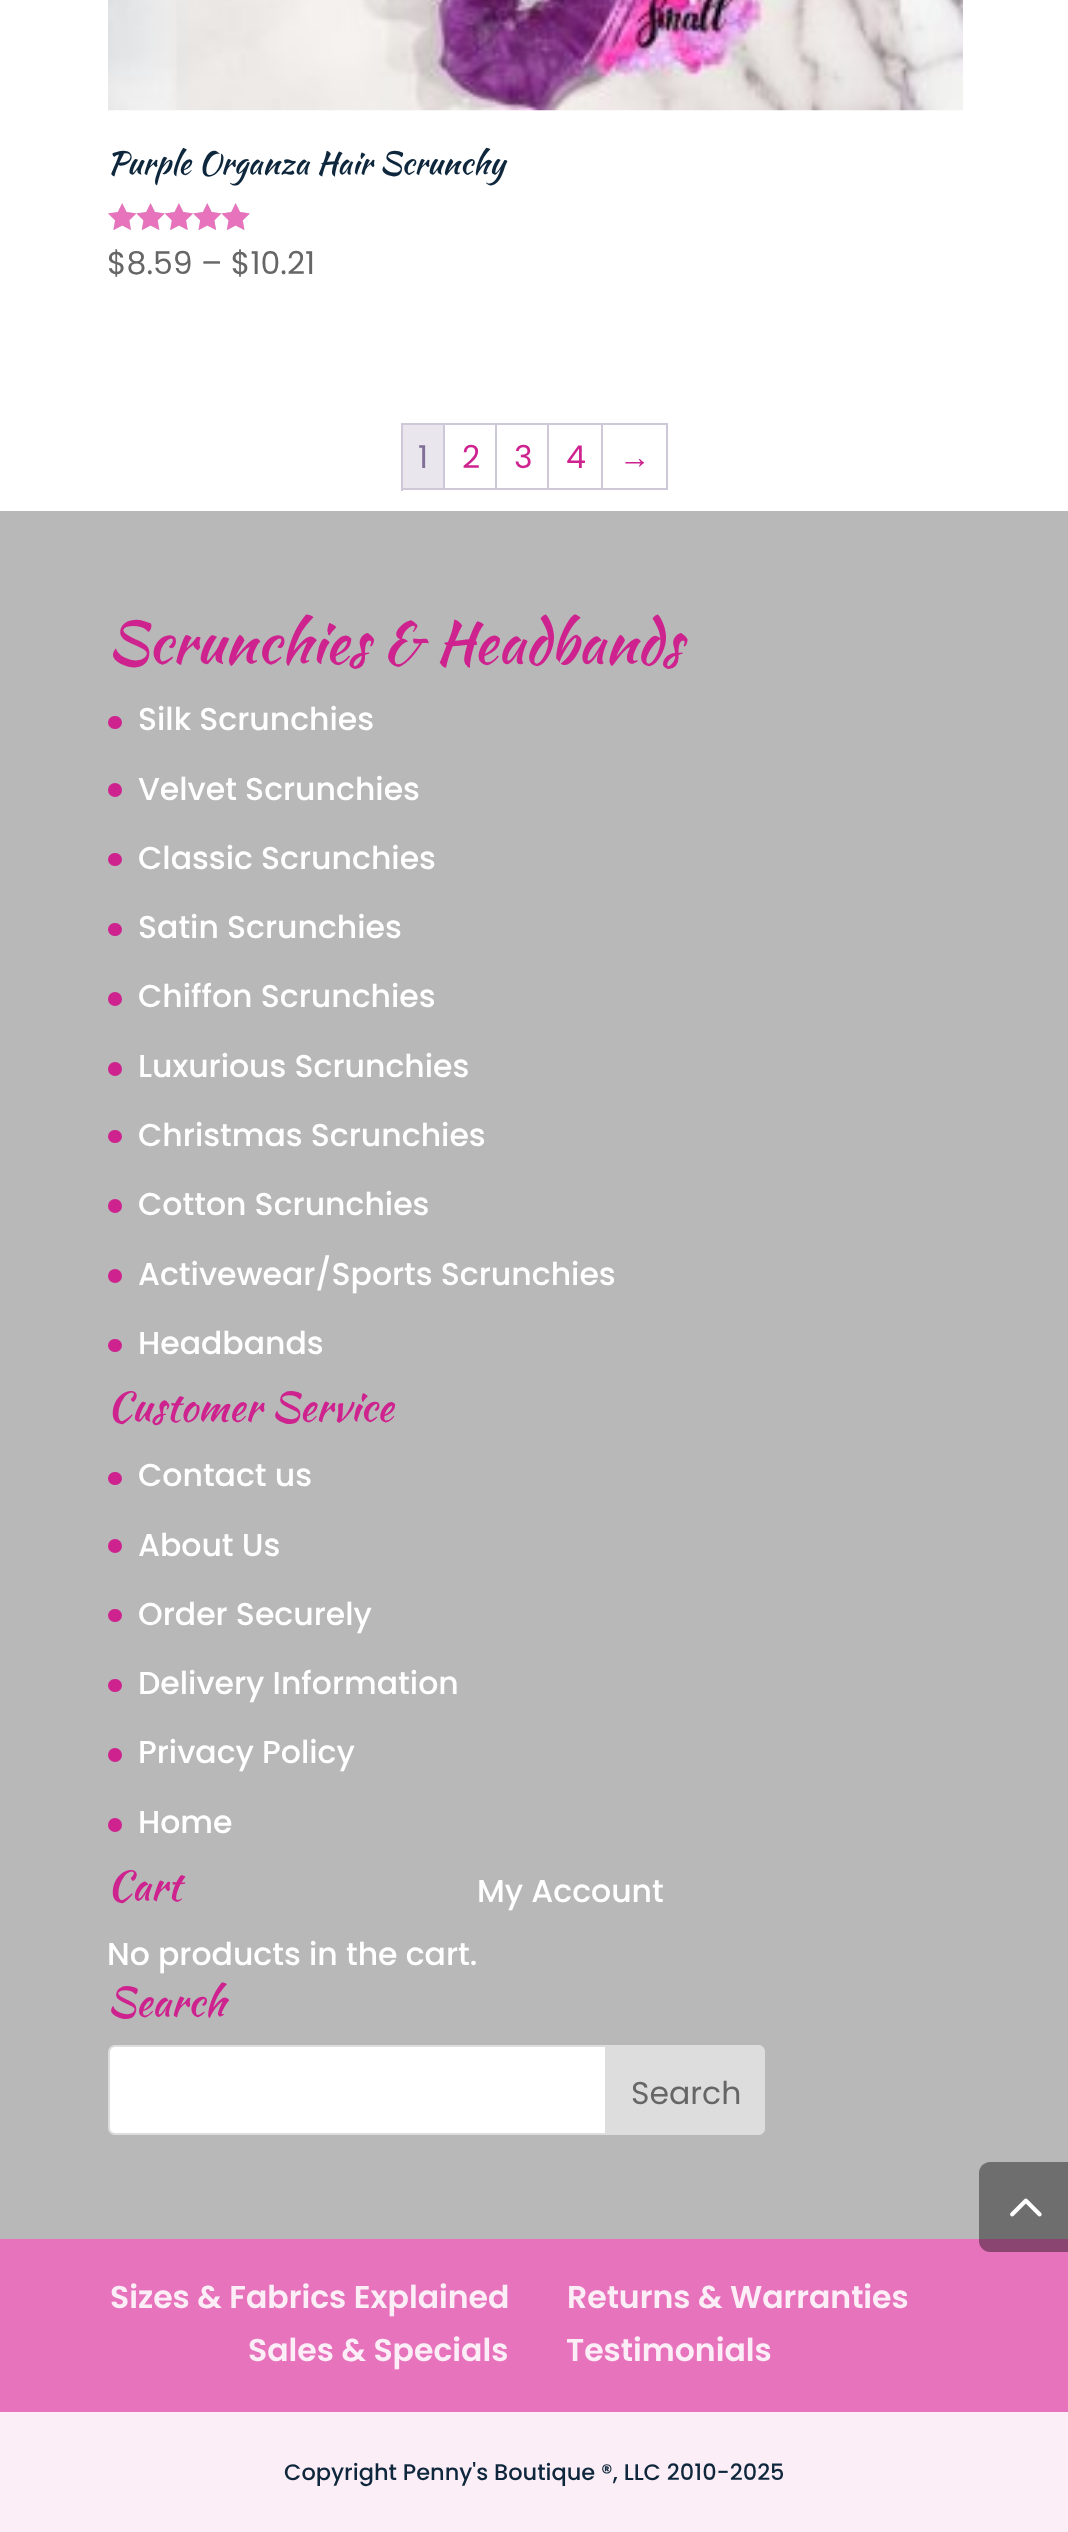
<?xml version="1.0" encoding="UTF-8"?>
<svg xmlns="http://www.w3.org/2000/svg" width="1068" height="2532">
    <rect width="100%" height="100%" fill="#FFFFFF"/>
    <image x="108" y="0" width="855" height="111" href="img_01.png"/>
    <text x="107" y="174" font-family="Kaushan Script" font-size="31.5" fill="#0E273C">Purple Organza Hair Scrunchy</text>
    <image x="108" y="203" width="142" height="27" href="img_02.png"/>
    <image x="108" y="203" width="142" height="27" href="img_03.png"/>
    <text x="107" y="274" font-family="Poppins" font-size="31.5" fill="#666666">$8.59 – $10.21</text>
    <rect x="401" y="423" width="267" height="2" fill="#CFC8D8"/>
    <rect x="401" y="488" width="267" height="2" fill="#CFC8D8"/>
    <rect x="401" y="423" width="2" height="68" fill="#CFC8D8"/>
    <rect x="443" y="425" width="2" height="63" fill="#CFC8D8"/>
    <rect x="403" y="425" width="40" height="63" fill="#E9E6ED"/>
    <text x="418" y="468" font-family="Poppins" font-size="31.5" fill="#816F98">1</text>
    <rect x="495" y="425" width="2" height="63" fill="#CFC8D8"/>
    <text x="462" y="468" font-family="Poppins" font-size="31.5" fill="#CE228F">2</text>
    <rect x="547" y="425" width="2" height="63" fill="#CFC8D8"/>
    <text x="514" y="468" font-family="Poppins" font-size="31.5" fill="#CE228F">3</text>
    <rect x="601" y="425" width="2" height="63" fill="#CFC8D8"/>
    <text x="566" y="468" font-family="Poppins" font-size="31.5" fill="#CE228F">4</text>
    <rect x="666" y="425" width="2" height="63" fill="#CFC8D8"/>
    <text x="619" y="468" font-family="Liberation Sans" font-size="31.5" fill="#CE228F">→</text>
    <rect x="0" y="511" width="1068" height="1728" fill="#B9B8B8"/>
    <text x="107" y="663" font-family="Kaushan Script" font-size="58.5" fill="#CE228F">Scrunchies &amp; Headbands</text>
    <rect x="108" y="716" width="14" height="13" rx="6.5" fill="#CE228F"/>
    <text x="138" y="730" font-family="Poppins" font-size="31.5" font-weight="500" fill="#FFFFFF">Silk Scrunchies</text>
    <circle cx="115" cy="790" r="7" fill="#CE228F"/>
    <text x="138" y="800" font-family="Poppins" font-size="31.5" font-weight="500" fill="#FFFFFF">Velvet Scrunchies</text>
    <rect x="108" y="853" width="14" height="13" rx="6.5" fill="#CE228F"/>
    <text x="138" y="869" font-family="Poppins" font-size="31.5" font-weight="500" fill="#FFFFFF">Classic Scrunchies</text>
    <rect x="108" y="923" width="14" height="13" rx="6.5" fill="#CE228F"/>
    <text x="138" y="938" font-family="Poppins" font-size="31.5" font-weight="500" fill="#FFFFFF">Satin Scrunchies</text>
    <circle cx="115" cy="999" r="7" fill="#CE228F"/>
    <text x="138" y="1007" font-family="Poppins" font-size="31.5" font-weight="500" fill="#FFFFFF">Chiffon Scrunchies</text>
    <circle cx="115" cy="1069" r="7" fill="#CE228F"/>
    <text x="138" y="1077" font-family="Poppins" font-size="31.5" font-weight="500" fill="#FFFFFF">Luxurious Scrunchies</text>
    <rect x="108" y="1130" width="14" height="13" rx="6.5" fill="#CE228F"/>
    <text x="138" y="1146" font-family="Poppins" font-size="31.5" font-weight="500" fill="#FFFFFF">Christmas Scrunchies</text>
    <circle cx="115" cy="1206" r="7" fill="#CE228F"/>
    <text x="138" y="1215" font-family="Poppins" font-size="31.5" font-weight="500" fill="#FFFFFF">Cotton Scrunchies</text>
    <circle cx="115" cy="1276" r="7" fill="#CE228F"/>
    <text x="138" y="1285" font-family="Poppins" font-size="31.5" font-weight="500" fill="#FFFFFF">Activewear/Sports Scrunchies</text>
    <rect x="108" y="1339" width="14" height="13" rx="6.5" fill="#CE228F"/>
    <text x="138" y="1354" font-family="Poppins" font-size="31.5" font-weight="500" fill="#FFFFFF">Headbands</text>
    <text x="107" y="1421" font-family="Kaushan Script" font-size="40.5" fill="#CE228F">Customer Service</text>
    <rect x="108" y="1472" width="14" height="13" rx="6.5" fill="#CE228F"/>
    <text x="138" y="1486" font-family="Poppins" font-size="31.5" font-weight="500" fill="#FFFFFF">Contact us</text>
    <circle cx="115" cy="1546" r="7" fill="#CE228F"/>
    <text x="138" y="1556" font-family="Poppins" font-size="31.5" font-weight="500" fill="#FFFFFF">About Us</text>
    <rect x="108" y="1609" width="14" height="13" rx="6.5" fill="#CE228F"/>
    <text x="138" y="1625" font-family="Poppins" font-size="31.5" font-weight="500" fill="#FFFFFF">Order Securely</text>
    <rect x="108" y="1679" width="14" height="13" rx="6.5" fill="#CE228F"/>
    <text x="138" y="1694" font-family="Poppins" font-size="31.5" font-weight="500" fill="#FFFFFF">Delivery Information</text>
    <circle cx="115" cy="1755" r="7" fill="#CE228F"/>
    <text x="138" y="1763" font-family="Poppins" font-size="31.5" font-weight="500" fill="#FFFFFF">Privacy Policy</text>
    <circle cx="115" cy="1825" r="7" fill="#CE228F"/>
    <text x="138" y="1833" font-family="Poppins" font-size="31.5" font-weight="500" fill="#FFFFFF">Home</text>
    <text x="107" y="1900" font-family="Kaushan Script" font-size="40.5" fill="#CE228F">Cart</text>
    <text x="107" y="1965" font-family="Poppins" font-size="31.5" font-weight="500" fill="#FFFFFF">No products in the cart.</text>
    <text x="477" y="1902" font-family="Poppins" font-size="31.5" font-weight="500" fill="#FFFFFF">My Account</text>
    <text x="107" y="2016" font-family="Kaushan Script" font-size="40.5" fill="#CE228F">Search</text>
    <rect x="109" y="2046" width="655" height="88" rx="6" fill="#FFFFFF" stroke="#DDDDDD" stroke-width="2"/>
    <path d="M 605 2045 H 758 C 762 2045 765 2048 765 2052 V 2128 C 765 2132 762 2135 758 2135 H 605 Z" fill="#DDDDDD"/>
    <text x="631" y="2104" font-family="Poppins" font-size="31.5" fill="#666666">Search</text>
    <rect x="0" y="2239" width="1068" height="173" fill="#E873BD"/>
    <text x="110" y="2308" font-family="Poppins" font-size="31.5" font-weight="600" fill="#FCEEF7">Sizes &amp; Fabrics Explained</text>
    <text x="567" y="2308" font-family="Poppins" font-size="31.5" font-weight="600" fill="#FCEEF7">Returns &amp; Warranties</text>
    <text x="248" y="2361" font-family="Poppins" font-size="31.5" font-weight="600" fill="#FCEEF7">Sales &amp; Specials</text>
    <text x="566" y="2361" font-family="Poppins" font-size="31.5" font-weight="600" fill="#FCEEF7">Testimonials</text>
    <rect x="0" y="2412" width="1068" height="120" fill="#FCEEF7"/>
    <text x="284" y="2480" font-family="Poppins" font-size="22.5" font-weight="500" fill="#0E273C">Copyright Penny's Boutique ®, LLC 2010-2025</text>
    <path d="M 990 2162 H 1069 V 2252 H 990 C 984 2252 979 2247 979 2241 V 2173 C 979 2167 984 2162 990 2162 Z" fill="#000000" fill-opacity="0.4"/>
    <image x="1010" y="2198" width="32" height="19" href="img_04.png"/>
</svg>
